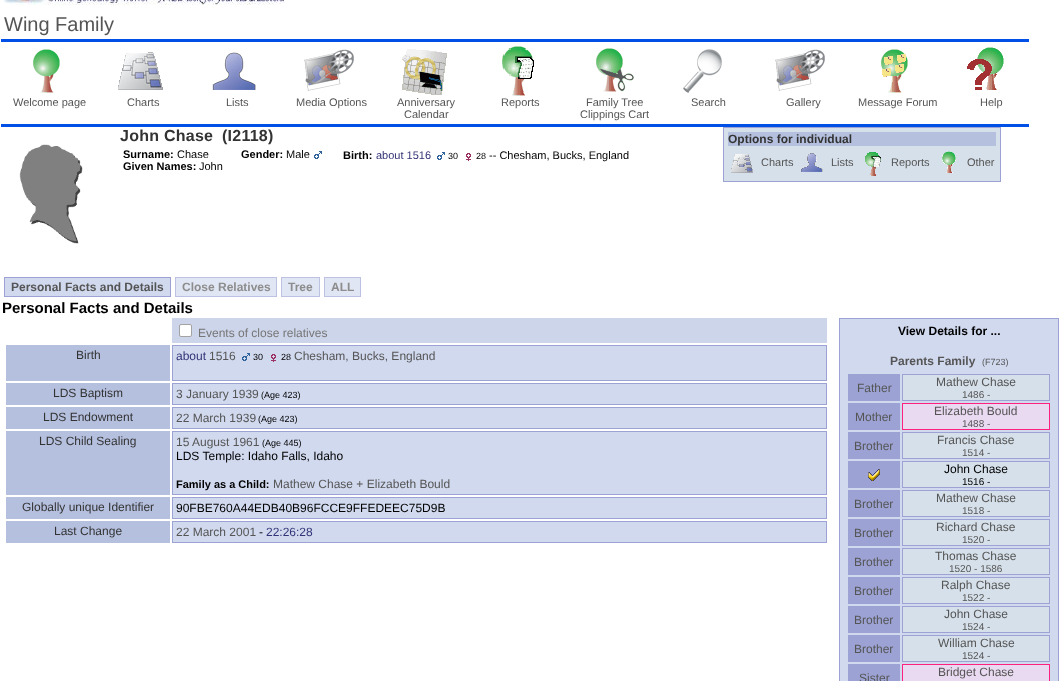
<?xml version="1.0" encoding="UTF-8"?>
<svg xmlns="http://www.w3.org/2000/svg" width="1062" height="681">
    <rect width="100%" height="100%" fill="#FFFFFF"/>
    <image x="4" y="0" width="280" height="5" href="img_01.png"/>
    <text x="4" y="31" font-family="Liberation Sans" font-size="20" fill="#555555">Wing Family</text>
    <rect x="1" y="39" width="1028" height="3" fill="#0050E8"/>
    <image x="33" y="49" width="27" height="44" href="img_02.png"/>
    <text x="13" y="106" font-family="Liberation Sans" font-size="11" fill="#555555">Welcome page</text>
    <image x="118" y="52" width="45" height="38" href="img_03.png"/>
    <text x="127" y="106" font-family="Liberation Sans" font-size="11" fill="#555555">Charts</text>
    <image x="212" y="52" width="44" height="38" href="img_04.png"/>
    <text x="226" y="106" font-family="Liberation Sans" font-size="11" fill="#555555">Lists</text>
    <image x="304" y="49" width="50" height="42" href="img_05.png"/>
    <text x="296" y="106" font-family="Liberation Sans" font-size="11" fill="#555555">Media Options</text>
    <image x="402" y="49" width="45" height="46" href="img_06.png"/>
    <text x="397" y="106" font-family="Liberation Sans" font-size="11" fill="#555555">Anniversary</text>
    <text x="404" y="118" font-family="Liberation Sans" font-size="11" fill="#555555">Calendar</text>
    <image x="502" y="46" width="32" height="50" href="img_07.png"/>
    <text x="501" y="106" font-family="Liberation Sans" font-size="11" fill="#555555">Reports</text>
    <image x="596" y="48" width="38" height="44" href="img_08.png"/>
    <text x="586" y="106" font-family="Liberation Sans" font-size="11" fill="#555555">Family Tree</text>
    <text x="580" y="118" font-family="Liberation Sans" font-size="11" fill="#555555">Clippings Cart</text>
    <image x="683" y="49" width="39" height="44" href="img_09.png"/>
    <text x="691" y="106" font-family="Liberation Sans" font-size="11" fill="#555555">Search</text>
    <image x="775" y="49" width="50" height="42" href="img_05.png"/>
    <text x="786" y="106" font-family="Liberation Sans" font-size="11" fill="#555555">Gallery</text>
    <image x="881" y="49" width="27" height="44" href="img_10.png"/>
    <text x="858" y="106" font-family="Liberation Sans" font-size="11" fill="#555555">Message Forum</text>
    <image x="967" y="47" width="37" height="43" href="img_11.png"/>
    <text x="980" y="106" font-family="Liberation Sans" font-size="11" fill="#555555">Help</text>
    <rect x="1" y="124" width="1028" height="3" fill="#0050E8"/>
    <image x="19" y="144" width="64" height="100" href="img_12.png"/>
    <text x="120" y="141" font-family="Liberation Sans" font-size="16" font-weight="700" letter-spacing="0.25" fill="#333333">John Chase</text>
    <text x="222" y="141" font-family="Liberation Sans" font-size="16" font-weight="700" letter-spacing="0.25" fill="#333333">(I2118)</text>
    <text x="123" y="158" font-family="Liberation Sans" font-size="11" font-weight="700" fill="#000000">Surname:</text>
    <text x="177" y="158" font-family="Liberation Sans" font-size="11" fill="#000000">Chase</text>
    <text x="123" y="170" font-family="Liberation Sans" font-size="11" font-weight="700" fill="#000000">Given Names:</text>
    <text x="199" y="170" font-family="Liberation Sans" font-size="11" fill="#000000">John</text>
    <text x="241" y="158" font-family="Liberation Sans" font-size="11" font-weight="700" fill="#000000">Gender:</text>
    <text x="286" y="158" font-family="Liberation Sans" font-size="11" fill="#000000">Male</text>
    <image x="314" y="151" width="8" height="8" href="img_13.png"/>
    <text x="343" y="159" font-family="Liberation Sans" font-size="11" font-weight="700" fill="#000000">Birth:</text>
    <text x="376" y="159" font-family="Liberation Sans" font-size="11" fill="#333377">about 1516</text>
    <image x="437" y="152" width="8" height="8" href="img_13.png"/>
    <text x="448" y="159" font-family="Liberation Sans" font-size="9" fill="#000000">30</text>
    <image x="466" y="153" width="5" height="8" href="img_14.png"/>
    <text x="476" y="159" font-family="Liberation Sans" font-size="9" fill="#000000">28</text>
    <text x="489" y="159" font-family="Liberation Sans" font-size="11" fill="#000000">-- Chesham, Bucks, England</text>
    <rect x="723.5" y="127.5" width="277" height="54" fill="#D6E0EA" stroke="#9CA3D4"/>
    <rect x="728" y="132" width="268" height="14" fill="#B5C0DF"/>
    <text x="728" y="143" font-family="Liberation Sans" font-size="12" font-weight="700" fill="#333333">Options for individual</text>
    <image x="731" y="154" width="22" height="19" href="img_15.png"/>
    <text x="761" y="166" font-family="Liberation Sans" font-size="11" fill="#555555">Charts</text>
    <image x="801" y="153" width="22" height="19" href="img_16.png"/>
    <text x="831" y="166" font-family="Liberation Sans" font-size="11" fill="#555555">Lists</text>
    <image x="865" y="152" width="16" height="24" href="img_17.png"/>
    <text x="891" y="166" font-family="Liberation Sans" font-size="11" fill="#555555">Reports</text>
    <image x="942" y="151" width="14" height="22" href="img_18.png"/>
    <text x="967" y="166" font-family="Liberation Sans" font-size="11" fill="#555555">Other</text>
    <rect x="4.5" y="277.5" width="166" height="19" fill="#D1D9EF" stroke="#9CA3D4"/>
    <text x="11" y="291" font-family="Liberation Sans" font-size="12" font-weight="700" fill="#555555">Personal Facts and Details</text>
    <rect x="175.5" y="277.5" width="101" height="19" fill="#E0E6F4" stroke="#BDC1E2"/>
    <text x="182" y="291" font-family="Liberation Sans" font-size="12" font-weight="700" fill="#8D8D8D">Close Relatives</text>
    <rect x="281.5" y="277.5" width="38" height="19" fill="#E0E6F4" stroke="#BDC1E2"/>
    <text x="288" y="291" font-family="Liberation Sans" font-size="12" font-weight="700" fill="#8D8D8D">Tree</text>
    <rect x="324.5" y="277.5" width="36" height="19" fill="#E0E6F4" stroke="#BDC1E2"/>
    <text x="331" y="291" font-family="Liberation Sans" font-size="12" font-weight="700" fill="#8D8D8D">ALL</text>
    <text x="2" y="313" font-family="Liberation Sans" font-size="15" font-weight="700" fill="#000000">Personal Facts and Details</text>
    <rect x="172" y="318" width="655" height="25" fill="#CDD5EA"/>
    <rect x="179.5" y="324.5" width="12" height="12" rx="1.5" fill="#FFFFFF" stroke="#A3A3A3"/>
    <text x="198" y="337" font-family="Liberation Sans" font-size="12" fill="#767676">Events of close relatives</text>
    <rect x="6" y="345" width="164" height="36" fill="#B5C0DF"/>
    <text x="76" y="359" font-family="Liberation Sans" font-size="12" fill="#333333">Birth</text>
    <rect x="172.5" y="345.5" width="654" height="35" fill="#D1D9EF" stroke="#9CA3D4"/>
    <text x="176" y="360" font-family="Liberation Sans" font-size="12" fill="#333377">about</text>
    <text x="209" y="360" font-family="Liberation Sans" font-size="12" fill="#555555">1516</text>
    <image x="242" y="353" width="8" height="8" href="img_19.png"/>
    <text x="253" y="360" font-family="Liberation Sans" font-size="9" fill="#000000">30</text>
    <image x="271" y="354" width="5" height="8" href="img_20.png"/>
    <text x="281" y="360" font-family="Liberation Sans" font-size="9" fill="#000000">28</text>
    <text x="294" y="360" font-family="Liberation Sans" font-size="12" fill="#555555">Chesham, Bucks, England</text>
    <rect x="6" y="383" width="164" height="22" fill="#B5C0DF"/>
    <text x="53" y="397" font-family="Liberation Sans" font-size="12" fill="#333333">LDS Baptism</text>
    <rect x="172.5" y="383.5" width="654" height="21" fill="#D1D9EF" stroke="#9CA3D4"/>
    <text x="176" y="398" font-family="Liberation Sans" font-size="12" fill="#555555">3 January 1939</text>
    <text x="261" y="398" font-family="Liberation Sans" font-size="9" fill="#000000">(Age 423)</text>
    <rect x="6" y="407" width="164" height="22" fill="#B5C0DF"/>
    <text x="43" y="421" font-family="Liberation Sans" font-size="12" fill="#333333">LDS Endowment</text>
    <rect x="172.5" y="407.5" width="654" height="21" fill="#D1D9EF" stroke="#9CA3D4"/>
    <text x="176" y="422" font-family="Liberation Sans" font-size="12" fill="#555555">22 March 1939</text>
    <text x="258" y="422" font-family="Liberation Sans" font-size="9" fill="#000000">(Age 423)</text>
    <rect x="6" y="431" width="164" height="64" fill="#B5C0DF"/>
    <text x="39" y="445" font-family="Liberation Sans" font-size="12" fill="#333333">LDS Child Sealing</text>
    <rect x="172.5" y="431.5" width="654" height="63" fill="#D1D9EF" stroke="#9CA3D4"/>
    <text x="176" y="446" font-family="Liberation Sans" font-size="12" fill="#555555">15 August 1961</text>
    <text x="262" y="446" font-family="Liberation Sans" font-size="9" fill="#000000">(Age 445)</text>
    <text x="176" y="460" font-family="Liberation Sans" font-size="12" fill="#000000">LDS Temple: Idaho Falls, Idaho</text>
    <text x="176" y="488" font-family="Liberation Sans" font-size="11" font-weight="700" fill="#000000">Family as a Child:</text>
    <text x="273" y="488" font-family="Liberation Sans" font-size="12" fill="#555555">Mathew Chase + Elizabeth Bould</text>
    <rect x="6" y="497" width="164" height="22" fill="#B5C0DF"/>
    <text x="22" y="511" font-family="Liberation Sans" font-size="12" fill="#333333">Globally unique Identifier</text>
    <rect x="172.5" y="497.5" width="654" height="21" fill="#D1D9EF" stroke="#9CA3D4"/>
    <text x="176" y="512" font-family="Liberation Sans" font-size="12" fill="#000000">90FBE760A44EDB40B96FCCE9FFEDEEC75D9B</text>
    <rect x="6" y="521" width="164" height="22" fill="#B5C0DF"/>
    <text x="54" y="535" font-family="Liberation Sans" font-size="12" fill="#333333">Last Change</text>
    <rect x="172.5" y="521.5" width="654" height="21" fill="#D1D9EF" stroke="#9CA3D4"/>
    <text x="176" y="536" font-family="Liberation Sans" font-size="12" fill="#555555">22 March 2001</text>
    <text x="259" y="536" font-family="Liberation Sans" font-size="12" fill="#000000">-</text>
    <text x="266" y="536" font-family="Liberation Sans" font-size="12" fill="#333377">22:26:28</text>
    <rect x="839.5" y="318.5" width="219" height="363" fill="#D1D9EF" stroke="#9CA3D4"/>
    <text x="898" y="335" font-family="Liberation Sans" font-size="12" font-weight="700" fill="#000000">View Details for ...</text>
    <text x="890" y="365" font-family="Liberation Sans" font-size="12" font-weight="700" fill="#555555">Parents Family</text>
    <text x="982" y="365" font-family="Liberation Sans" font-size="9" fill="#555555">(F723)</text>
    <rect x="848" y="374" width="52" height="27" fill="#9CA3D4"/>
    <text x="857" y="392" font-family="Liberation Sans" font-size="12" fill="#555555">Father</text>
    <rect x="902.5" y="374.5" width="147" height="26" fill="#D6E0EA" stroke="#9CA3D4"/>
    <text x="936" y="386" font-family="Liberation Sans" font-size="12" fill="#555555">Mathew Chase</text>
    <text x="962" y="398" font-family="Liberation Sans" font-size="10" fill="#555555">1486 -</text>
    <rect x="848" y="403" width="52" height="27" fill="#9CA3D4"/>
    <text x="855" y="421" font-family="Liberation Sans" font-size="12" fill="#555555">Mother</text>
    <rect x="902.5" y="403.5" width="147" height="26" fill="#E9DAF1" stroke="#FF2080"/>
    <text x="934" y="415" font-family="Liberation Sans" font-size="12" fill="#555555">Elizabeth Bould</text>
    <text x="962" y="427" font-family="Liberation Sans" font-size="10" fill="#555555">1488 -</text>
    <rect x="848" y="432" width="52" height="27" fill="#9CA3D4"/>
    <text x="854" y="450" font-family="Liberation Sans" font-size="12" fill="#555555">Brother</text>
    <rect x="902.5" y="432.5" width="147" height="26" fill="#D6E0EA" stroke="#9CA3D4"/>
    <text x="937" y="444" font-family="Liberation Sans" font-size="12" fill="#555555">Francis Chase</text>
    <text x="962" y="456" font-family="Liberation Sans" font-size="10" fill="#555555">1514 -</text>
    <rect x="848" y="461" width="52" height="27" fill="#9CA3D4"/>
    <image x="868" y="469" width="12" height="12" href="img_21.png"/>
    <rect x="902.5" y="461.5" width="147" height="26" fill="#D6E0EA" stroke="#9CA3D4"/>
    <text x="944" y="473" font-family="Liberation Sans" font-size="12" fill="#000000">John Chase</text>
    <text x="962" y="485" font-family="Liberation Sans" font-size="10" fill="#000000">1516 -</text>
    <rect x="848" y="490" width="52" height="27" fill="#9CA3D4"/>
    <text x="854" y="508" font-family="Liberation Sans" font-size="12" fill="#555555">Brother</text>
    <rect x="902.5" y="490.5" width="147" height="26" fill="#D6E0EA" stroke="#9CA3D4"/>
    <text x="936" y="502" font-family="Liberation Sans" font-size="12" fill="#555555">Mathew Chase</text>
    <text x="962" y="514" font-family="Liberation Sans" font-size="10" fill="#555555">1518 -</text>
    <rect x="848" y="519" width="52" height="27" fill="#9CA3D4"/>
    <text x="854" y="537" font-family="Liberation Sans" font-size="12" fill="#555555">Brother</text>
    <rect x="902.5" y="519.5" width="147" height="26" fill="#D6E0EA" stroke="#9CA3D4"/>
    <text x="936" y="531" font-family="Liberation Sans" font-size="12" fill="#555555">Richard Chase</text>
    <text x="962" y="543" font-family="Liberation Sans" font-size="10" fill="#555555">1520 -</text>
    <rect x="848" y="548" width="52" height="27" fill="#9CA3D4"/>
    <text x="854" y="566" font-family="Liberation Sans" font-size="12" fill="#555555">Brother</text>
    <rect x="902.5" y="548.5" width="147" height="26" fill="#D6E0EA" stroke="#9CA3D4"/>
    <text x="935" y="560" font-family="Liberation Sans" font-size="12" fill="#555555">Thomas Chase</text>
    <text x="949" y="572" font-family="Liberation Sans" font-size="10" fill="#555555">1520 - 1586</text>
    <rect x="848" y="577" width="52" height="27" fill="#9CA3D4"/>
    <text x="854" y="595" font-family="Liberation Sans" font-size="12" fill="#555555">Brother</text>
    <rect x="902.5" y="577.5" width="147" height="26" fill="#D6E0EA" stroke="#9CA3D4"/>
    <text x="941" y="589" font-family="Liberation Sans" font-size="12" fill="#555555">Ralph Chase</text>
    <text x="962" y="601" font-family="Liberation Sans" font-size="10" fill="#555555">1522 -</text>
    <rect x="848" y="606" width="52" height="27" fill="#9CA3D4"/>
    <text x="854" y="624" font-family="Liberation Sans" font-size="12" fill="#555555">Brother</text>
    <rect x="902.5" y="606.5" width="147" height="26" fill="#D6E0EA" stroke="#9CA3D4"/>
    <text x="944" y="618" font-family="Liberation Sans" font-size="12" fill="#555555">John Chase</text>
    <text x="962" y="630" font-family="Liberation Sans" font-size="10" fill="#555555">1524 -</text>
    <rect x="848" y="635" width="52" height="27" fill="#9CA3D4"/>
    <text x="854" y="653" font-family="Liberation Sans" font-size="12" fill="#555555">Brother</text>
    <rect x="902.5" y="635.5" width="147" height="26" fill="#D6E0EA" stroke="#9CA3D4"/>
    <text x="938" y="647" font-family="Liberation Sans" font-size="12" fill="#555555">William Chase</text>
    <text x="962" y="659" font-family="Liberation Sans" font-size="10" fill="#555555">1524 -</text>
    <rect x="848" y="664" width="52" height="17" fill="#9CA3D4"/>
    <text x="859" y="682" font-family="Liberation Sans" font-size="12" fill="#555555">Sister</text>
    <rect x="902.5" y="664.5" width="147" height="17" fill="#E9DAF1" stroke="#FF2080"/>
    <text x="938" y="676" font-family="Liberation Sans" font-size="12" fill="#555555">Bridget Chase</text>
</svg>
